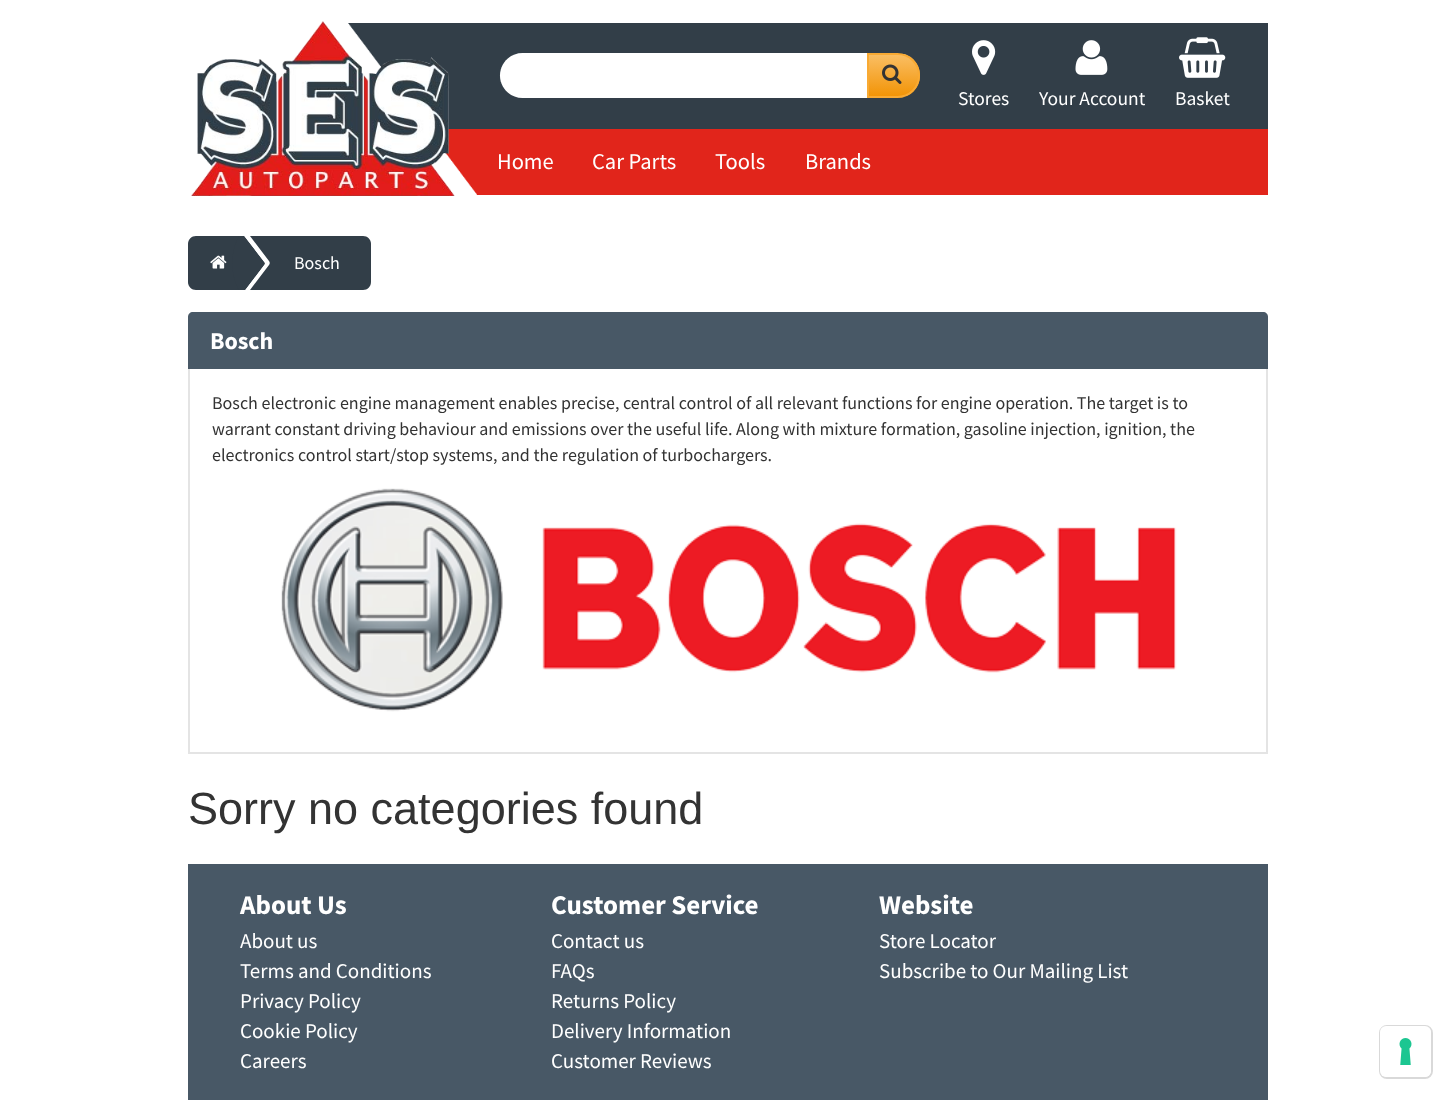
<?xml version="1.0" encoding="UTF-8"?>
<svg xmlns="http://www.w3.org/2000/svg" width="1454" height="1100">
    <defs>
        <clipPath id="clip1"><path d="M 867 53 H 897.5 C 910 53 920 63 920 75.5 C 920 88 910 98 897.5 98 H 867 Z"/></clipPath>
        <linearGradient id="g1" gradientUnits="userSpaceOnUse" x1="893" y1="54" x2="893" y2="96"><stop offset="0" stop-color="#FABF65"/><stop offset="1" stop-color="#F29407"/></linearGradient>
    </defs>
    <rect width="100%" height="100%" fill="#FFFFFF"/>
    <rect x="348" y="23" width="129" height="106" fill="#323E48"/>
    <rect x="445" y="129" width="32" height="66" fill="#E1251B"/>
    <image x="191" y="21" width="287" height="175" href="img_01.png"/>
    <rect x="477" y="23" width="791" height="106" fill="#323E48"/>
    <path d="M 522.5 53 H 867 V 98 H 522.5 C 510 98 500 88 500 75.5 C 500 63 510 53 522.5 53 Z" fill="#FFFFFF"/>
    <g clip-path="url(#clip1)">
        <rect x="869" y="54" width="51" height="42" fill="url(#g1)"/>
    </g>
    <path d="M 868 54 H 897.5 C 909.5 54 919 63.5 919 75.5 C 919 87.5 909.5 97 897.5 97 H 868 Z" fill="none" stroke="#F9AA33" stroke-width="2"/>
    <image x="882" y="64" width="20" height="20" href="img_02.png"/>
    <image x="972" y="40" width="24" height="35" href="img_03.png"/>
    <text x="958" y="105" font-family="Source Sans Pro" font-size="19.5" fill="#FFFFFF">Stores</text>
    <image x="1075" y="40" width="33" height="35" href="img_04.png"/>
    <text x="1039" y="105" font-family="Source Sans Pro" font-size="19.5" fill="#FFFFFF">Your Account</text>
    <image x="1179" y="37" width="47" height="41" href="img_05.png"/>
    <text x="1175" y="105" font-family="Source Sans Pro" font-size="19.5" fill="#FFFFFF">Basket</text>
    <rect x="477" y="129" width="791" height="66" fill="#E1251B"/>
    <text x="497" y="169" font-family="Source Sans Pro" font-size="22.5" fill="#FFFFFF">Home</text>
    <text x="592" y="169" font-family="Source Sans Pro" font-size="22.5" fill="#FFFFFF">Car Parts</text>
    <text x="715" y="169" font-family="Source Sans Pro" font-size="22.5" fill="#FFFFFF">Tools</text>
    <text x="805" y="169" font-family="Source Sans Pro" font-size="22.5" fill="#FFFFFF">Brands</text>
    <path d="M 196 236 H 242 V 290 H 196 C 191.5 290 188 286.5 188 282 V 244 C 188 239.5 191.5 236 196 236 Z" fill="#323E48"/>
    <image x="210" y="255" width="17" height="14" href="img_06.png"/>
    <path d="M 242 236 H 363 C 367.5 236 371 239.5 371 244 V 282 C 371 286.5 367.5 290 363 290 H 242 Z" fill="#323E48"/>
    <path d="M 245 290 H 250 L 269 265 C 270 264 270 262 269 261 L 250 236 H 244 L 264 262 C 265 263 265 264 264 265 Z" fill="#FFFFFF"/>
    <path d="M 245 290 H 249 L 268 265 V 261 L 249 236 H 244 L 264 262 C 265 263 265 264 264 265 Z" fill="#FFFFFF"/>
    <path d="M 239 290 C 230 274 230 252 239 236 H 244 L 264 262 C 265 263 265 264 264 265 L 245 290 Z" fill="#323E48"/>
    <text x="294" y="269" font-family="Source Sans Pro" font-size="18" fill="#FFFFFF">Bosch</text>
    <path d="M 193 312 H 1263 C 1266 312 1268 314 1268 317 V 369 H 188 V 317 C 188 314 190 312 193 312 Z" fill="#485866"/>
    <text x="210" y="349" font-family="Source Sans Pro" font-size="24" font-weight="700" fill="#FFFFFF">Bosch</text>
    <rect x="1266" y="369" width="2" height="384" fill="#E4E4E4"/>
    <rect x="188" y="752" width="1080" height="2" fill="#E4E4E4"/>
    <rect x="188" y="369" width="2" height="384" fill="#E4E4E4"/>
    <text font-family="Source Sans Pro" font-size="18" fill="#333333">
        <tspan x="212" y="409">Bosch electronic engine management enables precise, central control of all relevant functions for engine operation. The target is to</tspan>
        <tspan x="212" y="435">warrant constant driving behaviour and emissions over the useful life. Along with mixture formation, gasoline injection, ignition, the</tspan>
        <tspan x="212" y="461">electronics control start/stop systems, and the regulation of turbochargers.</tspan>
    </text>
    <image x="281" y="488" width="896" height="224" href="img_07.png"/>
    <text x="188" y="824" font-family="Liberation Sans" font-size="45" fill="#333333">Sorry no categories found</text>
    <rect x="188" y="864" width="1080" height="236" fill="#485866"/>
    <text x="240" y="914" font-family="Source Sans Pro" font-size="27" font-weight="700" fill="#FFFFFF">About Us</text>
    <text font-family="Source Sans Pro" font-size="21" fill="#FFFFFF">
        <tspan x="240" y="948">About us</tspan>
        <tspan x="240" y="978">Terms and Conditions</tspan>
        <tspan x="240" y="1008">Privacy Policy</tspan>
        <tspan x="240" y="1038">Cookie Policy</tspan>
        <tspan x="240" y="1068">Careers</tspan>
    </text>
    <text x="551" y="914" font-family="Source Sans Pro" font-size="27" font-weight="700" fill="#FFFFFF">Customer Service</text>
    <text font-family="Source Sans Pro" font-size="21" fill="#FFFFFF">
        <tspan x="551" y="948">Contact us</tspan>
        <tspan x="551" y="978">FAQs</tspan>
        <tspan x="551" y="1008">Returns Policy</tspan>
        <tspan x="551" y="1038">Delivery Information</tspan>
        <tspan x="551" y="1068">Customer Reviews</tspan>
    </text>
    <text x="879" y="914" font-family="Source Sans Pro" font-size="27" font-weight="700" fill="#FFFFFF">Website</text>
    <text font-family="Source Sans Pro" font-size="21" fill="#FFFFFF">
        <tspan x="879" y="948">Store Locator</tspan>
        <tspan x="879" y="978">Subscribe to Our Mailing List</tspan>
    </text>
    <rect x="1380" y="1026" width="52" height="52" rx="7" fill="none" stroke="#D9D9D9" stroke-width="2"/>
    <rect x="1380" y="1026" width="51" height="51" rx="6" fill="#FFFFFF"/>
    <image x="1399" y="1038" width="13" height="27" href="img_08.png"/>
</svg>
